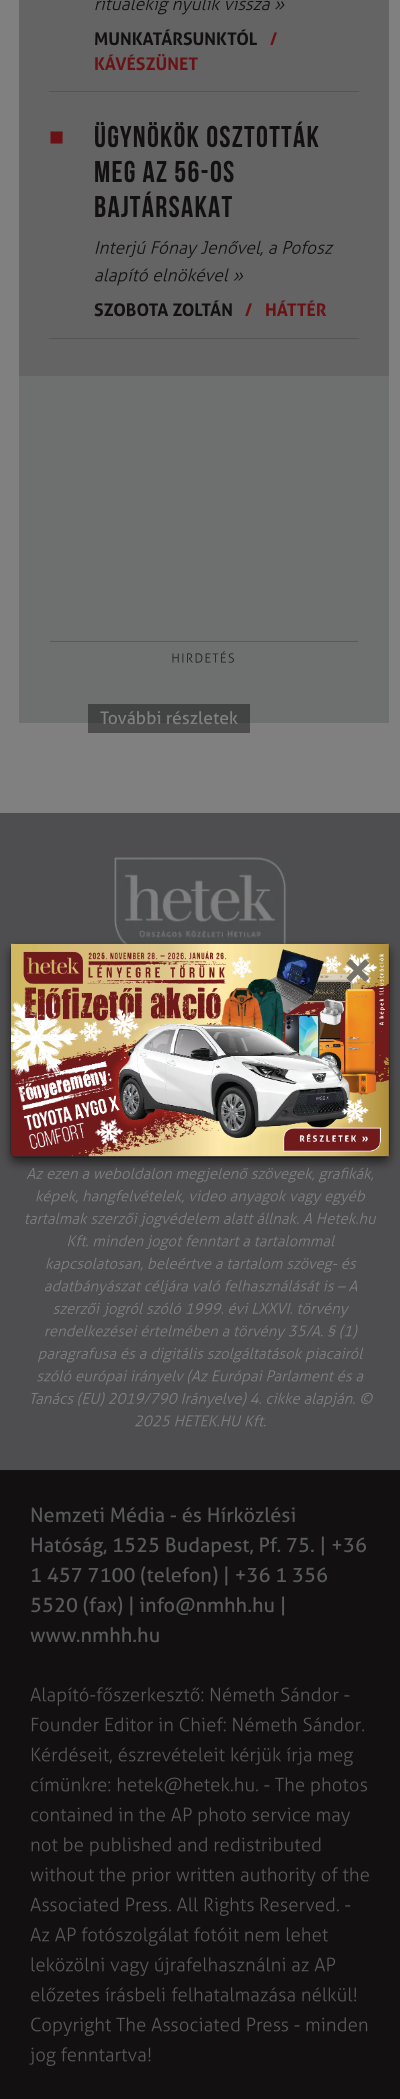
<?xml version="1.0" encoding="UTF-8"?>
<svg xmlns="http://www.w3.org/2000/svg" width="400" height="2099">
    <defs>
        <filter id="blur1" x="-50%" y="-200%" width="200%" height="500%"><feGaussianBlur stdDeviation="5"/></filter>
    </defs>
    <rect width="100%" height="100%" fill="#808080"/>
    <rect x="88" y="723" width="162" height="10" fill="#4D4D4D"/>
    <rect x="19" y="376" width="370" height="347" fill="#6E6F6F"/>
    <rect x="88" y="704" width="162" height="19" fill="#424343"/>
    <rect x="19" y="0" width="370" height="376" fill="#646465"/>
    <image x="95" y="0" width="175" height="15" href="img_01.png"/>
    <image x="275" y="1" width="10" height="9" href="img_02.png"/>
    <rect x="49" y="91" width="310" height="1" fill="#545556"/>
    <text x="94" y="45" font-family="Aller" font-size="17.5" font-weight="700" fill="#121010">MUNKATÁRSUNKTÓL</text>
    <text x="270" y="45" font-family="Aller" font-size="17.5" font-weight="700" fill="#691215">/</text>
    <text x="94" y="70" font-family="Aller" font-size="17.5" font-weight="700" fill="#691215">KÁVÉSZÜNET</text>
    <text x="49" y="145" font-family="Liberation Sans" font-size="25" fill="#691215">■</text>
    <text font-family="Bebas Neue" font-size="30" font-weight="700" letter-spacing="1.25" fill="#121010">
        <tspan x="94" y="147">ÜGYNÖKÖK OSZTOTTÁK</tspan>
        <tspan x="94" y="182">MEG AZ 56-OS</tspan>
        <tspan x="94" y="217">BAJTÁRSAKAT</tspan>
    </text>
    <image x="95" y="240" width="239" height="19" href="img_03.png"/>
    <image x="95" y="268" width="134" height="18" href="img_04.png"/>
    <image x="233" y="272" width="11" height="9" href="img_05.png"/>
    <rect x="49" y="338" width="310" height="1" fill="#545556"/>
    <text x="94" y="316" font-family="Aller" font-size="17.5" font-weight="700" fill="#121010">SZOBOTA ZOLTÁN</text>
    <text x="245" y="316" font-family="Aller" font-size="17.5" font-weight="700" fill="#691215">/</text>
    <text x="265" y="316" font-family="Aller" font-size="17.5" font-weight="700" fill="#691215">HÁTTÉR</text>
    <rect x="50" y="641" width="308" height="1" fill="#58595A"/>
    <image x="172" y="651" width="62" height="12" href="img_06.png"/>
    <text x="100" y="724" font-family="Aller" font-size="17.5" fill="#808080">További részletek</text>
    <rect x="0" y="813" width="400" height="657" fill="#4E4E50"/>
    <image x="114" y="857" width="173" height="87" href="img_07.png"/>
    <image x="26" y="1167" width="348" height="16" href="img_08.png"/>
    <image x="36" y="1190" width="330" height="15" href="img_09.png"/>
    <image x="25" y="1212" width="352" height="16" href="img_10.png"/>
    <image x="67" y="1235" width="268" height="15" href="img_11.png"/>
    <image x="46" y="1257" width="311" height="16" href="img_12.png"/>
    <image x="45" y="1280" width="313" height="15" href="img_13.png"/>
    <image x="53" y="1302" width="47" height="12" href="img_14.png"/>
    <image x="102" y="1302" width="247" height="16" href="img_15.png"/>
    <image x="45" y="1324" width="313" height="16" href="img_16.png"/>
    <image x="38" y="1347" width="109" height="16" href="img_17.png"/>
    <image x="151" y="1347" width="213" height="16" href="img_18.png"/>
    <image x="37" y="1369" width="327" height="16" href="img_19.png"/>
    <image x="31" y="1392" width="74" height="15" href="img_20.png"/>
    <image x="108" y="1392" width="265" height="16" href="img_21.png"/>
    <image x="134" y="1415" width="132" height="12" href="img_22.png"/>
    <rect x="10" y="948" width="380" height="215" rx="6" fill="#000000" fill-opacity="0.5" filter="url(#blur1)"/>
    <rect x="10.5" y="943.5" width="379" height="214" rx="5.5" fill="none" stroke="#000000" stroke-opacity="0.2"/>
    <image x="11" y="943" width="378" height="214" href="img_23.png"/>
    <text x="344" y="996" font-family="'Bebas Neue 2'" font-size="70" font-weight="700" fill="#767268">×</text>
    <rect x="0" y="1470" width="400" height="629" fill="#121010"/>
    <text font-family="Aller" font-size="20" fill="#58595A">
        <tspan x="30" y="1522">Nemzeti Média - és Hírközlési</tspan>
        <tspan x="30" y="1552">Hatóság, 1525 Budapest, Pf. 75. | +36</tspan>
        <tspan x="30" y="1582">1 457 7100 (telefon) | +36 1 356</tspan>
        <tspan x="30" y="1612">5520 (fax) | info@nmhh.hu |</tspan>
        <tspan x="30" y="1642">www.nmhh.hu</tspan>
    </text>
    <image x="30" y="1687" width="320" height="19" href="img_24.png"/>
    <image x="31" y="1717" width="333" height="15" href="img_25.png"/>
    <image x="31" y="1747" width="194" height="17" href="img_26.png"/>
    <image x="231" y="1747" width="122" height="19" href="img_27.png"/>
    <image x="31" y="1777" width="80" height="15" href="img_28.png"/>
    <image x="117" y="1777" width="137" height="18" href="img_29.png"/>
    <image x="256" y="1777" width="111" height="19" href="img_30.png"/>
    <image x="31" y="1807" width="319" height="19" href="img_31.png"/>
    <image x="31" y="1837" width="52" height="15" href="img_32.png"/>
    <image x="90" y="1837" width="231" height="19" href="img_33.png"/>
    <image x="30" y="1867" width="339" height="19" href="img_34.png"/>
    <image x="30" y="1897" width="224" height="19" href="img_35.png"/>
    <image x="260" y="1897" width="91" height="15" href="img_36.png"/>
    <image x="30" y="1927" width="298" height="19" href="img_37.png"/>
    <image x="31" y="1957" width="305" height="19" href="img_38.png"/>
    <image x="31" y="1987" width="134" height="15" href="img_39.png"/>
    <image x="171" y="1987" width="186" height="15" href="img_40.png"/>
    <image x="31" y="2017" width="337" height="19" href="img_41.png"/>
    <image x="29" y="2047" width="122" height="19" href="img_42.png"/>
</svg>
